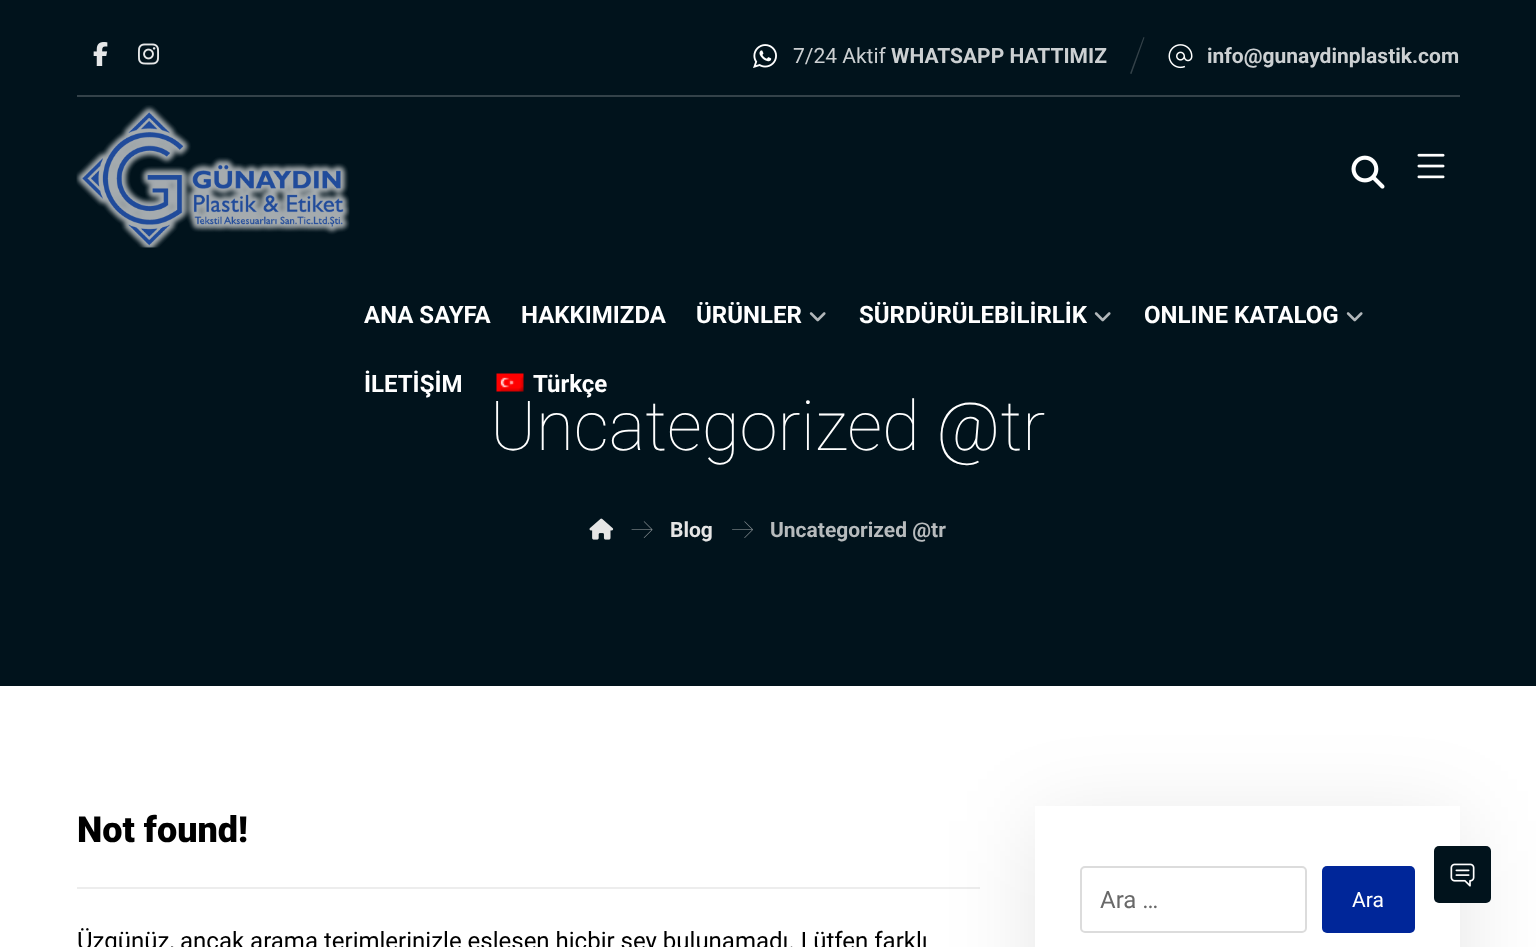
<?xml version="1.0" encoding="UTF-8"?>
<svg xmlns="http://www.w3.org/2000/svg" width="1536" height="947">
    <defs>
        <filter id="blur1" x="-50%" y="-200%" width="200%" height="500%"><feGaussianBlur stdDeviation="45"/></filter>
    </defs>
    <rect width="100%" height="100%" fill="#FFFFFF"/>
    <rect x="0" y="0" width="1536" height="686" fill="#01131C"/>
    <rect x="77" y="95" width="1383" height="2" fill="#344249"/>
    <image x="93" y="42" width="15" height="24" href="img_01.png"/>
    <image x="138" y="43" width="21" height="22" href="img_02.png"/>
    <image x="753" y="44" width="24" height="24" href="img_03.png"/>
    <text x="793" y="63" font-family="Roboto" font-size="21" fill="#CCD0D2">7/24 Aktif</text>
    <text x="891" y="63" font-family="Roboto" font-size="21" font-weight="700" fill="#CCD0D2">WHATSAPP HATTIMIZ</text>
    <path d="M 1143.5 37 L 1144.5 37.5 L 1131.5 74 L 1130 73.5 Z" fill="#344249"/>
    <image x="1168" y="44" width="25" height="25" href="img_04.png"/>
    <text x="1207" y="63" font-family="Roboto" font-size="21" font-weight="700" fill="#CCD0D2">info@gunaydinplastik.com</text>
    <image x="76" y="105" width="274" height="143" href="img_05.png"/>
    <image x="1351" y="155" width="34" height="34" href="img_06.png"/>
    <image x="1417" y="153" width="28" height="26" href="img_07.png"/>
    <text x="364" y="323" font-family="Roboto" font-size="24" font-weight="700" fill="#FFFFFF">ANA SAYFA</text>
    <text x="521" y="323" font-family="Roboto" font-size="24" font-weight="700" fill="#FFFFFF">HAKKIMIZDA</text>
    <text x="696" y="323" font-family="Roboto" font-size="24" font-weight="700" fill="#FFFFFF">ÜRÜNLER</text>
    <image x="809" y="312" width="17" height="10" href="img_08.png"/>
    <text x="859" y="323" font-family="Roboto" font-size="24" font-weight="700" fill="#FFFFFF">SÜRDÜRÜLEBİLİRLİK</text>
    <image x="1094" y="312" width="17" height="10" href="img_08.png"/>
    <text x="1144" y="323" font-family="Roboto" font-size="24" font-weight="700" fill="#FFFFFF">ONLINE KATALOG</text>
    <image x="1346" y="312" width="17" height="10" href="img_08.png"/>
    <text x="364" y="392" font-family="Roboto" font-size="24" font-weight="700" fill="#FFFFFF">İLETİŞİM</text>
    <image x="496" y="373" width="28" height="19" href="img_09.png"/>
    <text x="533" y="392" font-family="Roboto" font-size="24" font-weight="700" fill="#FFFFFF">Türkçe</text>
    <text x="490" y="450" font-family="Roboto" font-size="69" font-weight="100" fill="#FFFFFF">Uncategorized @tr</text>
    <image x="589" y="518" width="25" height="22" href="img_10.png"/>
    <image x="631" y="521" width="22" height="17" href="img_11.png"/>
    <text x="670" y="537" font-family="Roboto" font-size="21" font-weight="700" fill="#E5E5E5">Blog</text>
    <image x="732" y="521" width="21" height="17" href="img_12.png"/>
    <text x="770" y="537" font-family="Roboto" font-size="21" font-weight="700" fill="#B7BBBD">Uncategorized @tr</text>
    <rect x="77" y="887" width="903" height="2" fill="#EDEDED"/>
    <text x="77" y="842" font-family="Roboto" font-size="36" font-weight="900" fill="#000000">Not found!</text>
    <text x="77" y="949" font-family="Roboto" font-size="24" fill="#000000">Üzgünüz, ancak arama terimlerinizle eşleşen hiçbir şey bulunamadı. Lütfen farklı</text>
    <rect x="1035" y="821" width="425" height="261" fill="#000000" fill-opacity="0.1" filter="url(#blur1)"/>
    <rect x="1035" y="806" width="425" height="141" fill="#FFFFFF"/>
    <rect x="1081" y="867" width="225" height="65" rx="4" fill="none" stroke="#DCDCDC" stroke-width="2"/>
    <text x="1100" y="908" font-family="Roboto" font-size="24" fill="#696969">Ara …</text>
    <rect x="1322" y="866" width="93" height="67" rx="5" fill="#002699"/>
    <text x="1352" y="907" font-family="Roboto" font-size="21" fill="#FFFFFF">Ara</text>
    <rect x="1434" y="846" width="57" height="57" rx="5" fill="#01131C"/>
    <image x="1450" y="863" width="25" height="24" href="img_13.png"/>
</svg>
